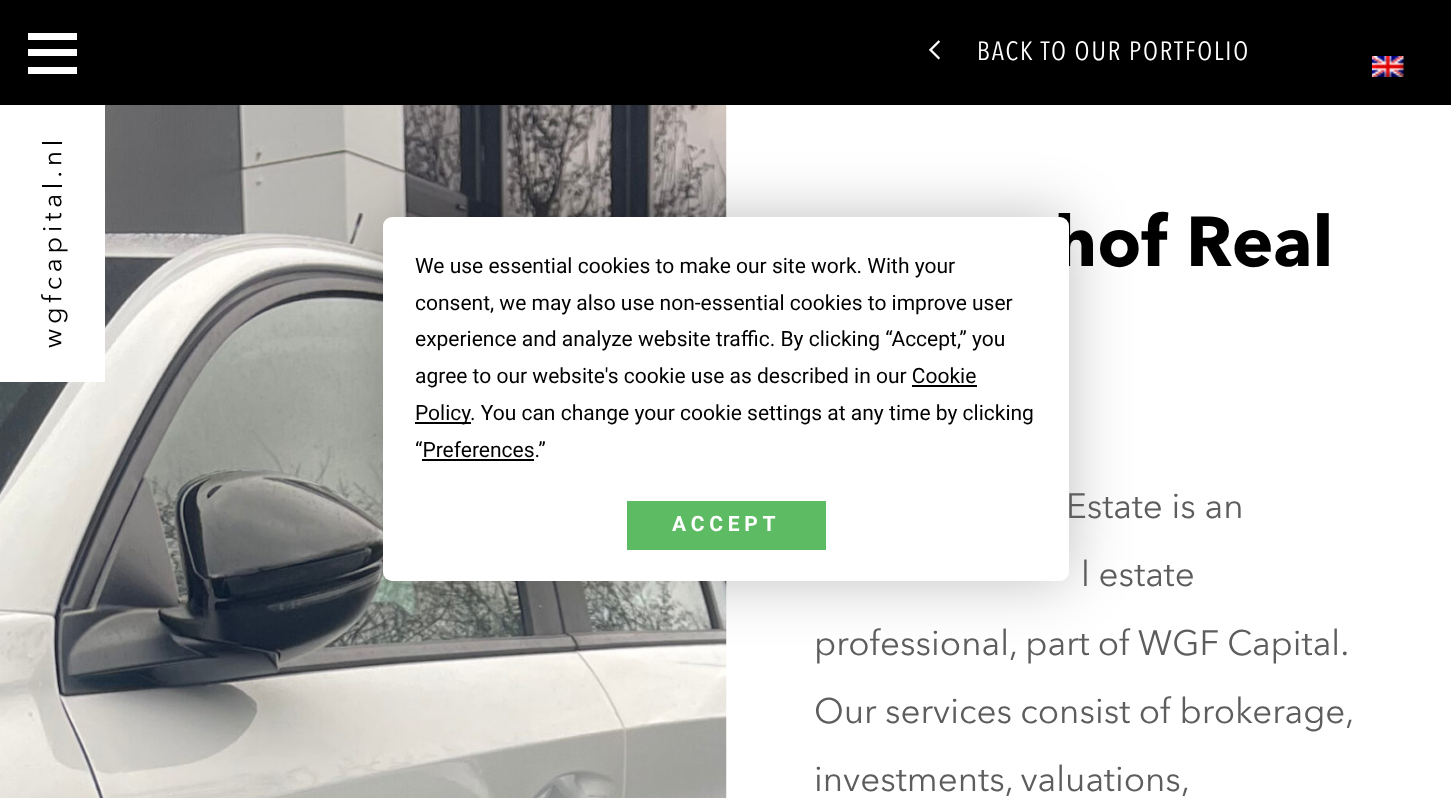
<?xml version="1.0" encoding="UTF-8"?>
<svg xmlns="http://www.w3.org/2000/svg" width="1451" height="798">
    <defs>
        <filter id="blur1" x="-50%" y="-200%" width="200%" height="500%"><feGaussianBlur stdDeviation="30.5"/></filter>
    </defs>
    <rect width="100%" height="100%" fill="#FFFFFF"/>
    <rect x="0" y="0" width="1451" height="105" fill="#000000"/>
    <rect x="28" y="33" width="49" height="7" fill="#FFFFFF"/>
    <rect x="28" y="67" width="49" height="7" fill="#FFFFFF"/>
    <rect x="28" y="49" width="49" height="7" fill="#FFFFFF"/>
    <image x="0" y="105" width="727" height="693" href="img_04.png"/>
    <image x="0" y="105" width="105" height="277" href="img_01.png"/>
    <image x="1372" y="56" width="32" height="21" href="img_02.png"/>
    <rect x="383" y="217" width="686" height="364" rx="9" fill="#000000" fill-opacity="0.25" filter="url(#blur1)"/>
    <text x="1054" y="266" font-family="Avenir Next" font-size="70" font-weight="700" fill="#000000">hof Real</text>
    <rect x="383" y="217" width="686" height="364" rx="9" fill="#FFFFFF"/>
    <text font-family="Roboto" font-size="21" fill="#000000">
        <tspan x="415" y="273">We use essential cookies to make our site work. With your</tspan>
        <tspan x="415" y="310">consent, we may also use non-essential cookies to improve user</tspan>
        <tspan x="415" y="346">experience and analyze website traffic. By clicking “Accept,” you</tspan>
        <tspan x="415" y="383">agree to our website's cookie use as described in our Cookie</tspan>
    </text>
    <rect x="415" y="422" width="56" height="2" fill="#000000"/>
    <text x="415" y="420" font-family="Roboto" font-size="21" fill="#000000">Policy</text>
    <rect x="912" y="385" width="65" height="2" fill="#000000"/>
    <text x="470" y="420" font-family="Roboto" font-size="21" fill="#000000">. You can change your cookie settings at any time by clicking</text>
    <text x="415" y="457" font-family="Roboto" font-size="21" fill="#000000">“Preferences.”</text>
    <rect x="422" y="459" width="112" height="2" fill="#000000"/>
    <rect x="627" y="501" width="199" height="49" fill="#5DBB63"/>
    <text x="672" y="531" font-family="Roboto" font-size="21" font-weight="700" letter-spacing="4.75" fill="#FFFFFF">ACCEPT</text>
    <image x="929" y="40" width="11" height="20" href="img_03.png"/>
    <text x="977" y="60" font-family="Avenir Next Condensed" font-size="26.25" letter-spacing="1.9" fill="#FFFFFF">BACK TO OUR PORTFOLIO</text>
    <text x="1066" y="518" font-family="Avenir Next" font-size="35" fill="#5D5D5D">Estate is an</text>
    <text x="1081" y="586" font-family="Avenir Next" font-size="35" fill="#5D5D5D">l estate</text>
    <text font-family="Avenir Next" font-size="35" fill="#5D5D5D">
        <tspan x="814" y="655" word-spacing="-0.5">professional, part of WGF Capital.</tspan>
        <tspan x="814" y="723" word-spacing="-0.5">Our services consist of brokerage,</tspan>
        <tspan x="814" y="791" word-spacing="-1">investments, valuations,</tspan>
    </text>
</svg>
